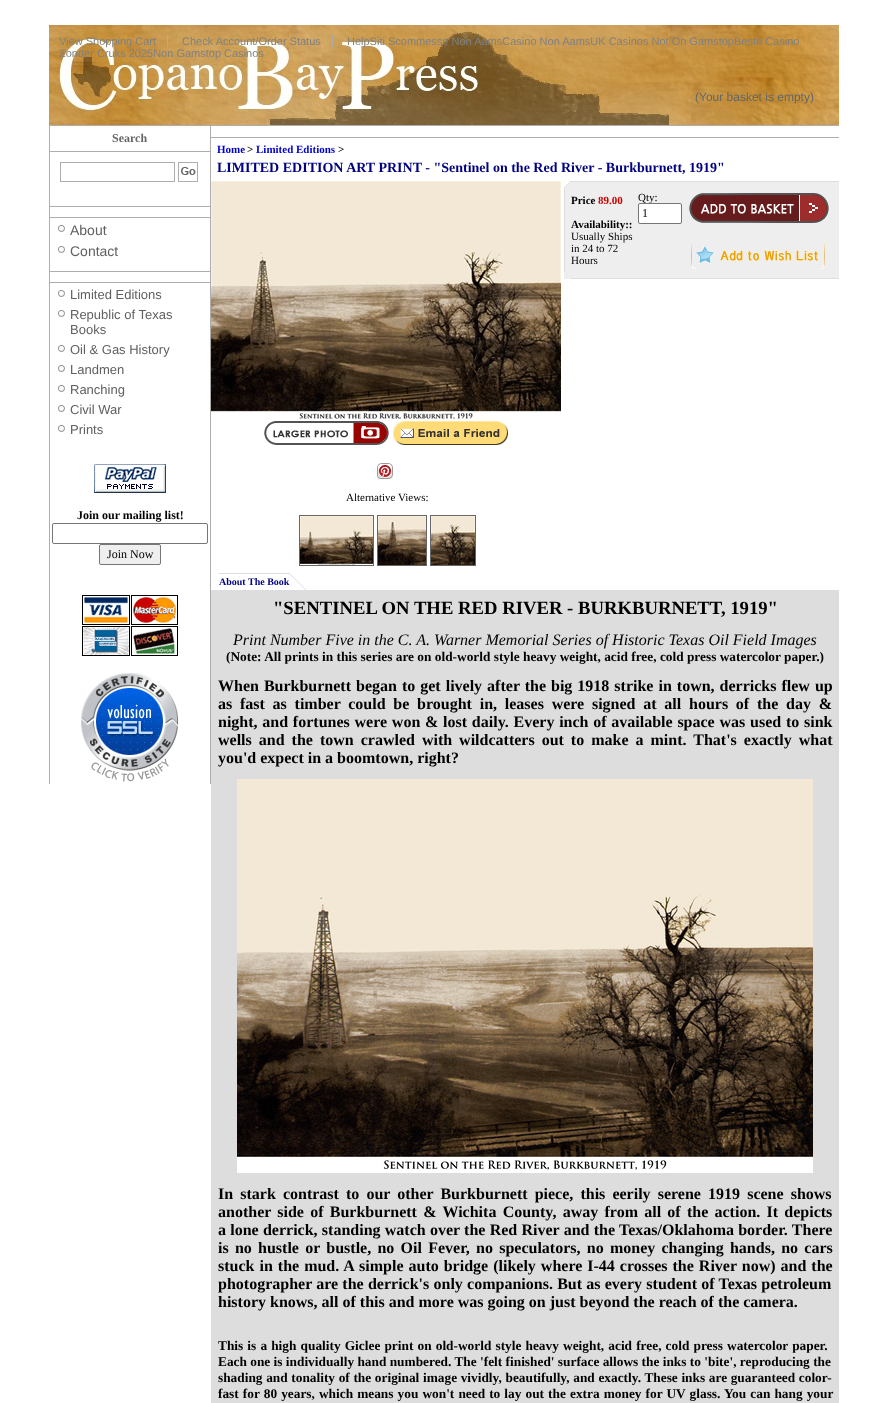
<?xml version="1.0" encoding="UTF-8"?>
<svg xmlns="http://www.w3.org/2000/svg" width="888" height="1403">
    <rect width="100%" height="100%" fill="#FFFFFF"/>
    <image x="49" y="25" width="790" height="100" href="img_01.png"/>
    <rect x="49" y="125" width="790" height="1" fill="#ADADAD"/>
    <text x="59" y="45" font-family="Liberation Sans" font-size="11" fill="#808080">View Shopping Cart</text>
    <rect x="167" y="35" width="1" height="12" fill="#ADADAD"/>
    <text x="182" y="45" font-family="Liberation Sans" font-size="11" fill="#808080">Check Account/Order Status</text>
    <rect x="332" y="35" width="1" height="12" fill="#ADADAD"/>
    <text x="347" y="45" font-family="Liberation Sans" font-size="11" fill="#808080">HelpSiti Scommesse Non AamsCasino Non AamsUK Casinos Not On GamstopBeste Casino</text>
    <text x="59" y="57" font-family="Liberation Sans" font-size="11" fill="#808080">Zonder Cruks 2025Non Gamstop Casinos</text>
    <text x="695" y="101" font-family="Liberation Sans" font-size="12" fill="#666666">(Your basket is empty)</text>
    <rect x="210" y="126" width="1" height="658" fill="#ADADAD"/>
    <rect x="49" y="126" width="1" height="658" fill="#ADADAD"/>
    <rect x="50" y="151" width="160" height="1" fill="#ADADAD"/>
    <text x="112" y="142" font-family="Liberation Serif" font-size="12" font-weight="700" fill="#666666">Search</text>
    <rect x="60.5" y="162.5" width="114" height="19" fill="none" stroke="#ADADAD"/>
    <image x="178" y="162" width="20" height="20" href="img_02.png"/>
    <rect x="50" y="206" width="160" height="1" fill="#ADADAD"/>
    <rect x="50" y="217" width="160" height="1" fill="#ADADAD"/>
    <image x="58" y="225" width="7" height="7" href="img_03.png"/>
    <text x="70" y="235" font-family="Liberation Sans" font-size="14" fill="#606060">About</text>
    <image x="58" y="246" width="7" height="7" href="img_03.png"/>
    <text x="70" y="256" font-family="Liberation Sans" font-size="14" fill="#606060">Contact</text>
    <rect x="50" y="271" width="160" height="1" fill="#ADADAD"/>
    <rect x="50" y="282" width="160" height="1" fill="#ADADAD"/>
    <image x="58" y="290" width="7" height="7" href="img_03.png"/>
    <text x="70" y="299" font-family="Liberation Sans" font-size="13" fill="#606060">Limited Editions</text>
    <image x="58" y="310" width="7" height="7" href="img_03.png"/>
    <text font-family="Liberation Sans" font-size="13" fill="#606060">
        <tspan x="70" y="319">Republic of Texas</tspan>
        <tspan x="70" y="334">Books</tspan>
    </text>
    <image x="58" y="345" width="7" height="7" href="img_03.png"/>
    <text x="70" y="354" font-family="Liberation Sans" font-size="13" fill="#606060">Oil &amp; Gas History</text>
    <image x="58" y="365" width="7" height="7" href="img_03.png"/>
    <text x="70" y="374" font-family="Liberation Sans" font-size="13" fill="#606060">Landmen</text>
    <image x="58" y="385" width="7" height="7" href="img_03.png"/>
    <text x="70" y="394" font-family="Liberation Sans" font-size="13" fill="#606060">Ranching</text>
    <image x="58" y="405" width="7" height="7" href="img_03.png"/>
    <text x="70" y="414" font-family="Liberation Sans" font-size="13" fill="#606060">Civil War</text>
    <image x="58" y="425" width="7" height="7" href="img_03.png"/>
    <text x="70" y="434" font-family="Liberation Sans" font-size="13" fill="#606060">Prints</text>
    <image x="94" y="464" width="72" height="29" href="img_04.png"/>
    <text x="77" y="519" font-family="Liberation Serif" font-size="12" font-weight="700" fill="#000000">Join our mailing list!</text>
    <rect x="52.5" y="523.5" width="155" height="20" rx="1.5" fill="none" stroke="#767676"/>
    <rect x="99.5" y="544.5" width="61" height="20" rx="1.5" fill="#EFEFEF" stroke="#767676"/>
    <text x="107" y="558" font-family="Liberation Serif" font-size="12" fill="#000000">Join Now</text>
    <image x="82" y="595" width="96" height="61" href="img_05.png"/>
    <image x="81" y="673" width="97" height="109" href="img_06.png"/>
    <rect x="211" y="137" width="628" height="1" fill="#ADADAD"/>
    <text x="217" y="153" font-family="Liberation Serif" font-size="11" font-weight="700" fill="#0000CD">Home</text>
    <text x="247" y="153" font-family="Liberation Serif" font-size="11" font-weight="700" fill="#000000">&gt;</text>
    <text x="256" y="153" font-family="Liberation Serif" font-size="11" font-weight="700" fill="#0000CD">Limited Editions</text>
    <text x="338" y="153" font-family="Liberation Serif" font-size="11" font-weight="700" fill="#000000">&gt;</text>
    <text x="217" y="172" font-family="Liberation Serif" font-size="14" font-weight="700" fill="#000080">LIMITED EDITION ART PRINT - "Sentinel on the Red River - Burkburnett, 1919"</text>
    <rect x="564" y="182" width="275" height="97" fill="#EEEEEE"/>
    <image x="564" y="181" width="7" height="7" href="img_07.png"/>
    <rect x="571" y="181" width="268" height="1" fill="#DDDDDD"/>
    <rect x="564" y="188" width="1" height="84" fill="#DDDDDD"/>
    <text x="571" y="204" font-family="Liberation Serif" font-size="11" font-weight="700" fill="#000000">Price</text>
    <text x="598" y="204" font-family="Liberation Serif" font-size="11" font-weight="700" fill="#CC0000">89.00</text>
    <text x="571" y="228" font-family="Liberation Serif" font-size="11" font-weight="700" fill="#000000">Availability::</text>
    <text font-family="Liberation Serif" font-size="11" fill="#000000">
        <tspan x="571" y="240">Usually Ships</tspan>
        <tspan x="571" y="252">in 24 to 72</tspan>
        <tspan x="571" y="264">Hours</tspan>
    </text>
    <text x="638" y="201" font-family="Liberation Serif" font-size="11" fill="#000000">Qty:</text>
    <rect x="638.5" y="203.5" width="43" height="20" rx="1.5" fill="#FFFFFF" stroke="#767676"/>
    <text x="642" y="217" font-family="Liberation Serif" font-size="12" fill="#000000">1</text>
    <image x="689" y="193" width="140" height="30" href="img_08.png"/>
    <image x="691" y="242" width="134" height="27" href="img_09.png"/>
    <rect x="571" y="278" width="268" height="1" fill="#DDDDDD"/>
    <image x="211" y="181" width="350" height="239" href="img_10.png"/>
    <image x="264" y="421" width="125" height="24" href="img_11.png"/>
    <image x="393" y="421" width="115" height="24" href="img_12.png"/>
    <image x="377" y="463" width="16" height="16" href="img_13.png"/>
    <text x="346" y="501" font-family="Liberation Serif" font-size="11" fill="#000000">Alternative Views:</text>
    <rect x="299.5" y="515.5" width="74" height="50" fill="none" stroke="#666666"/>
    <rect x="377.5" y="515.5" width="49" height="50" fill="none" stroke="#666666"/>
    <rect x="430.5" y="515.5" width="45" height="50" fill="none" stroke="#666666"/>
    <image x="300" y="516" width="73" height="49" href="img_14.png"/>
    <image x="378" y="516" width="48" height="49" href="img_15.png"/>
    <image x="431" y="516" width="44" height="49" href="img_16.png"/>
    <rect x="219" y="573" width="70" height="1" fill="#DDDDDD"/>
    <image x="289" y="573" width="17" height="17" href="img_17.png"/>
    <text x="219" y="585" font-family="Liberation Serif" font-size="10" font-weight="700" fill="#000080">About The Book</text>
    <rect x="211" y="590" width="628" height="813" fill="#DDDDDD"/>
    <text x="273" y="614" font-family="Liberation Serif" font-size="18.7" font-weight="700" fill="#000000">"SENTINEL ON THE RED RIVER - BURKBURNETT, 1919"</text>
    <text x="233" y="645" font-family="Liberation Serif" font-size="16" font-style="italic" fill="#000000">Print Number Five in the C. A. Warner Memorial Series of Historic Texas Oil Field Images</text>
    <text x="226" y="661" font-family="Liberation Serif" font-size="13.35" font-weight="700" fill="#000000">(Note: All prints in this series are on old-world style heavy weight, acid free, cold press watercolor paper.)</text>
    <text font-family="Liberation Serif" font-size="16" font-weight="700" fill="#000000">
        <tspan x="218" y="691" word-spacing="1">When Burkburnett began to get lively after the big 1918 strike in town, derricks flew up</tspan>
        <tspan x="218" y="709" word-spacing="3.75">as fast as timber could be brought in, leases were signed at all hours of the day &amp;</tspan>
        <tspan x="218" y="727" word-spacing="0.75">night, and fortunes were won &amp; lost daily. Every inch of available space was used to sink</tspan>
        <tspan x="218" y="745" word-spacing="3">wells and the town crawled with wildcatters out to make a mint. That's exactly what</tspan>
        <tspan x="218" y="763">you'd expect in a boomtown, right?</tspan>
    </text>
    <image x="237" y="779" width="576" height="394" href="img_18.png"/>
    <text font-family="Liberation Serif" font-size="16" font-weight="700" fill="#000000">
        <tspan x="218" y="1199" word-spacing="3.1">In stark contrast to our other Burkburnett piece, this eerily serene 1919 scene shows</tspan>
        <tspan x="218" y="1217" word-spacing="2.25">another side of Burkburnett &amp; Wichita County, away from all of the action. It depicts</tspan>
        <tspan x="218" y="1235" word-spacing="0.25">a lone derrick, standing watch over the Red River and the Texas/Oklahoma border. There</tspan>
        <tspan x="218" y="1253" word-spacing="2.25">is no hustle or bustle, no Oil Fever, no speculators, no money changing hands, no cars</tspan>
        <tspan x="218" y="1271" word-spacing="1">stuck in the mud. A simple auto bridge (likely where I-44 crosses the River now) and the</tspan>
        <tspan x="218" y="1289" word-spacing="0.25">photographer are the derrick's only companions. But as every student of Texas petroleum</tspan>
        <tspan x="218" y="1307">history knows, all of this and more was going on just beyond the reach of the camera.</tspan>
    </text>
    <text font-family="Liberation Serif" font-size="13.35" font-weight="700" fill="#000000">
        <tspan x="218" y="1350" word-spacing="0.8">This is a high quality Giclee print on old-world style heavy weight, acid free, cold press watercolor paper.</tspan>
        <tspan x="218" y="1366">Each one is individually hand numbered. The 'felt finished' surface allows the inks to 'bite', reproducing the</tspan>
        <tspan x="218" y="1382" word-spacing="0.3">shading and tonality of the original image vividly, beautifully, and exactly. These inks are guaranteed color-</tspan>
        <tspan x="218" y="1398" word-spacing="0.75">fast for 80 years, which means you won't need to lay out the extra money for UV glass. You can hang your</tspan>
    </text>
</svg>
